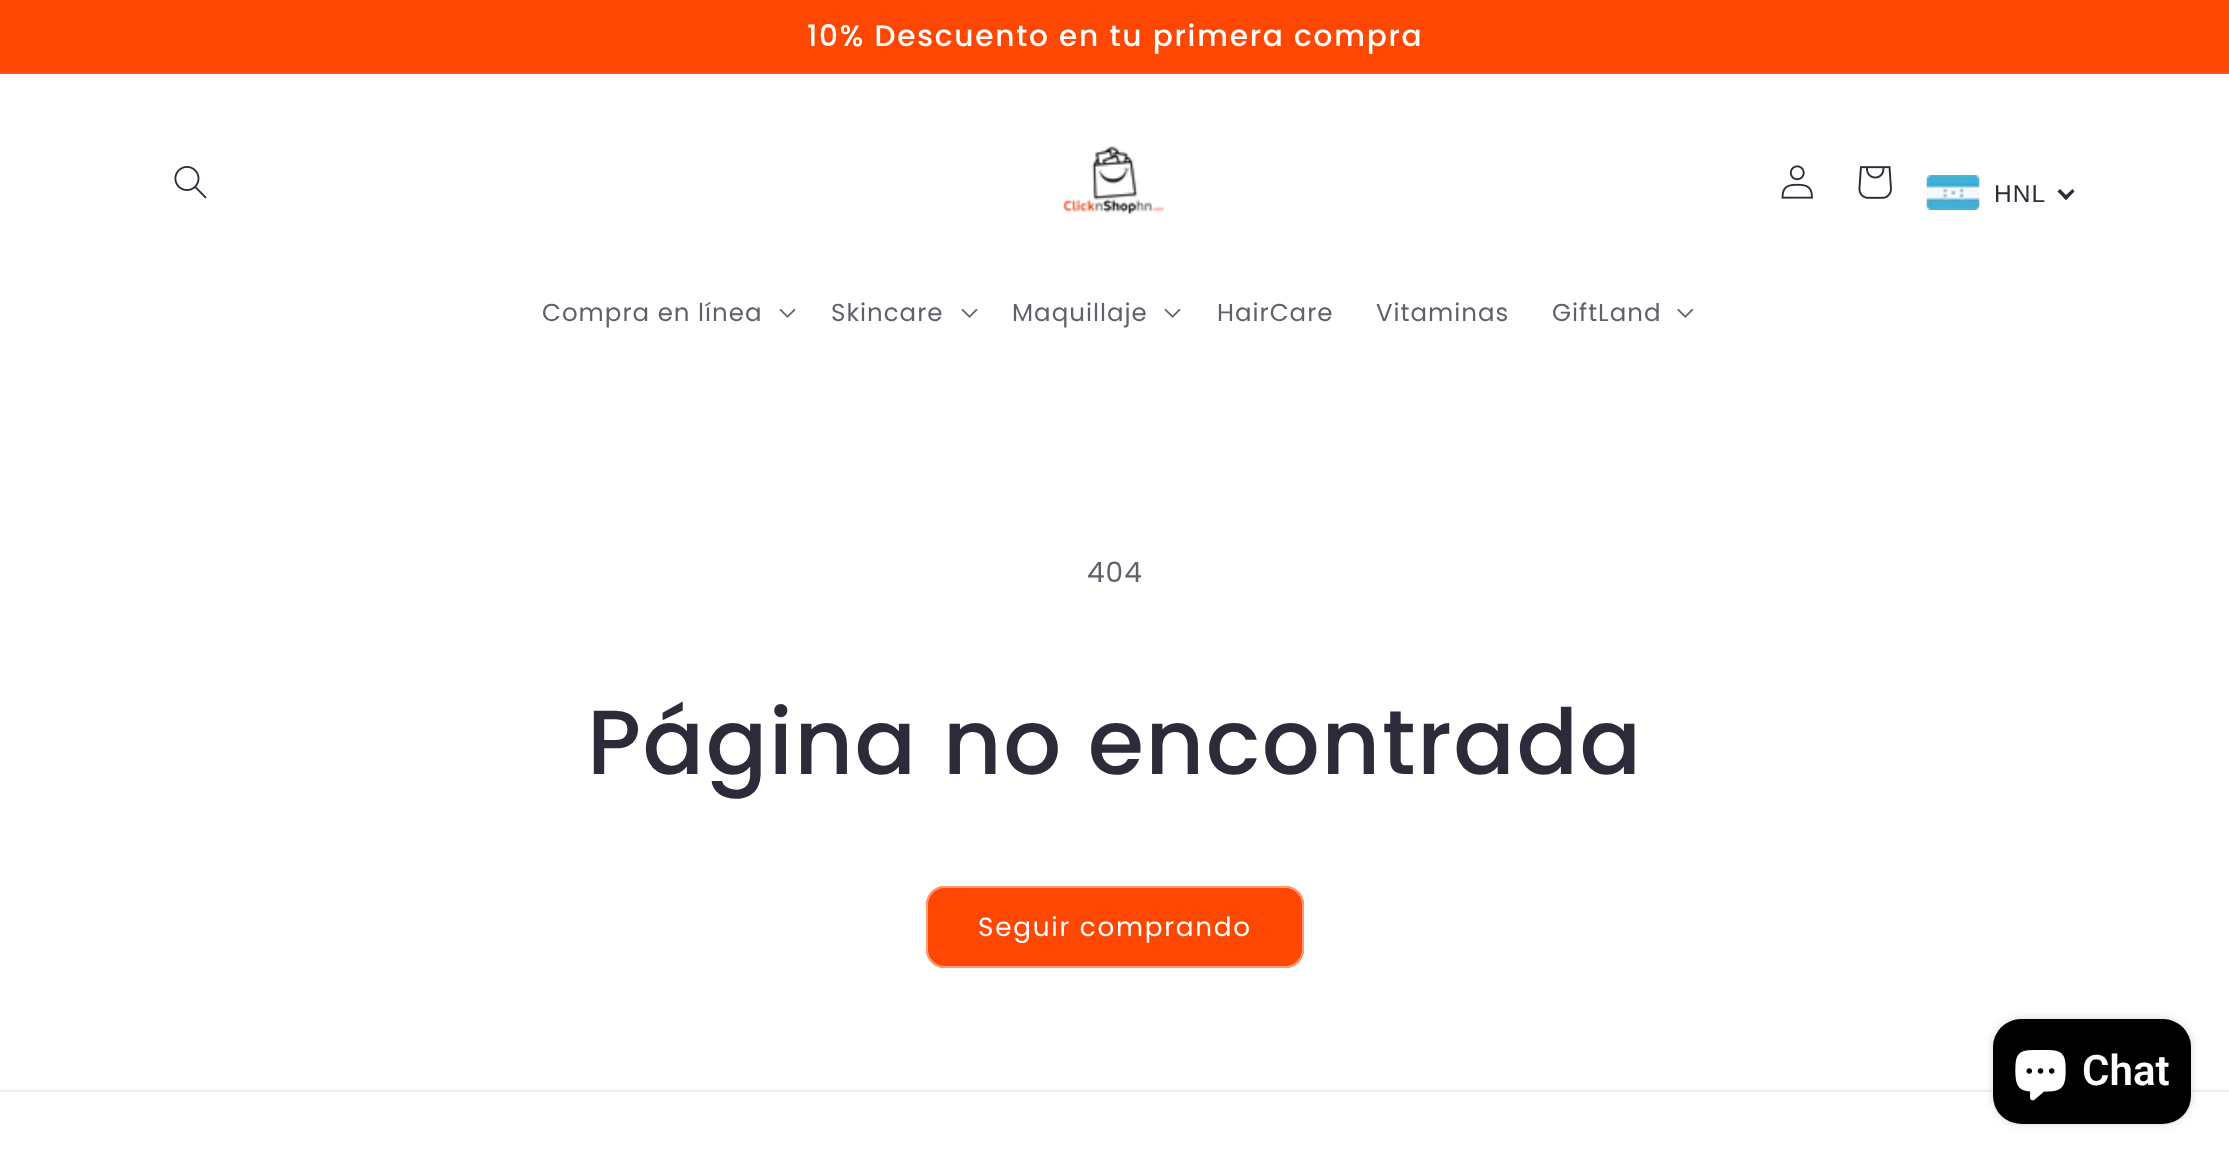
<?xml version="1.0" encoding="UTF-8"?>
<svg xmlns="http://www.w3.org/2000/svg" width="2229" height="1159">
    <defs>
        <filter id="blur1" x="-50%" y="-200%" width="200%" height="500%"><feGaussianBlur stdDeviation="4.5"/></filter>
    </defs>
    <rect width="100%" height="100%" fill="#FFFFFF"/>
    <rect x="0" y="0" width="2229" height="72" fill="#FD4703"/>
    <rect x="0" y="72" width="2229" height="2" fill="#FD5617"/>
    <text x="807" y="46" font-family="Poppins" font-size="29.6" font-weight="500" letter-spacing="1.75" fill="#FFFFFF">10% Descuento en tu primera compra</text>
    <image x="174" y="166" width="33" height="33" href="img_01.png"/>
    <image x="1062" y="146" width="103" height="68" href="img_02.png"/>
    <image x="1781" y="165" width="32" height="34" href="img_03.png"/>
    <image x="1858" y="166" width="34" height="33" href="img_04.png"/>
    <image x="1926" y="175" width="54" height="35" href="img_05.png"/>
    <text x="1994" y="202" font-family="Liberation Sans" font-size="24.5" letter-spacing="1" fill="#2E2A39">HNL</text>
    <path d="M 2072.5 189 L 2074.5 191.5 L 2066 200 L 2063.5 197.5 Z" fill="#2E2A39"/>
    <path d="M 2060 189 L 2068.5 197.5 L 2066 200 L 2057.5 191.5 Z" fill="#2E2A39"/>
    <text x="542" y="321" font-family="Poppins" font-size="24.5" letter-spacing="1" fill="#625F6B">Compra en línea</text>
    <image x="779" y="308" width="17" height="10" href="img_06.png"/>
    <text x="831" y="321" font-family="Poppins" font-size="24.5" letter-spacing="1" fill="#625F6B">Skincare</text>
    <image x="961" y="308" width="17" height="10" href="img_06.png"/>
    <text x="1012" y="321" font-family="Poppins" font-size="24.5" letter-spacing="1" fill="#625F6B">Maquillaje</text>
    <image x="1164" y="308" width="17" height="10" href="img_06.png"/>
    <text x="1217" y="321" font-family="Poppins" font-size="24.5" letter-spacing="1" fill="#625F6B">HairCare</text>
    <text x="1376" y="321" font-family="Poppins" font-size="24.5" letter-spacing="1" fill="#625F6B">Vitaminas</text>
    <text x="1552" y="321" font-family="Poppins" font-size="24.5" letter-spacing="1" fill="#625F6B">GiftLand</text>
    <image x="1677" y="308" width="17" height="10" href="img_07.png"/>
    <text x="1087" y="582" font-family="Poppins" font-size="28" letter-spacing="1" fill="#625F6B">404</text>
    <text x="587" y="774" font-family="Poppins" font-size="91" font-weight="500" letter-spacing="1.4" fill="#2E2A39">Página no encontrada</text>
    <rect x="926" y="886" width="378" height="82" rx="19" fill="#FD4703"/>
    <rect x="927" y="887" width="376" height="80" rx="18" fill="none" stroke="#FD4703" stroke-width="2"/>
    <rect x="927" y="887" width="376" height="80" rx="18" fill="none" stroke="#FFFFFF" stroke-opacity="0.45" stroke-width="2"/>
    <text x="978" y="936" font-family="Poppins" font-size="26.25" letter-spacing="1.75" fill="#FFFFFF">Seguir comprando</text>
    <rect x="0" y="1090" width="2229" height="2" fill="#EEEEEF"/>
    <rect x="1993" y="1019" width="198" height="105" rx="28" fill="#000000" fill-opacity="0.15" filter="url(#blur1)"/>
    <rect x="1993" y="1019" width="198" height="105" rx="28" fill="#000000"/>
    <image x="2015" y="1050" width="51" height="51" href="img_08.png"/>
    <text x="2082" y="1085" font-family="Roboto" font-size="42" font-weight="600" fill="#FFFFFF">Chat</text>
</svg>
